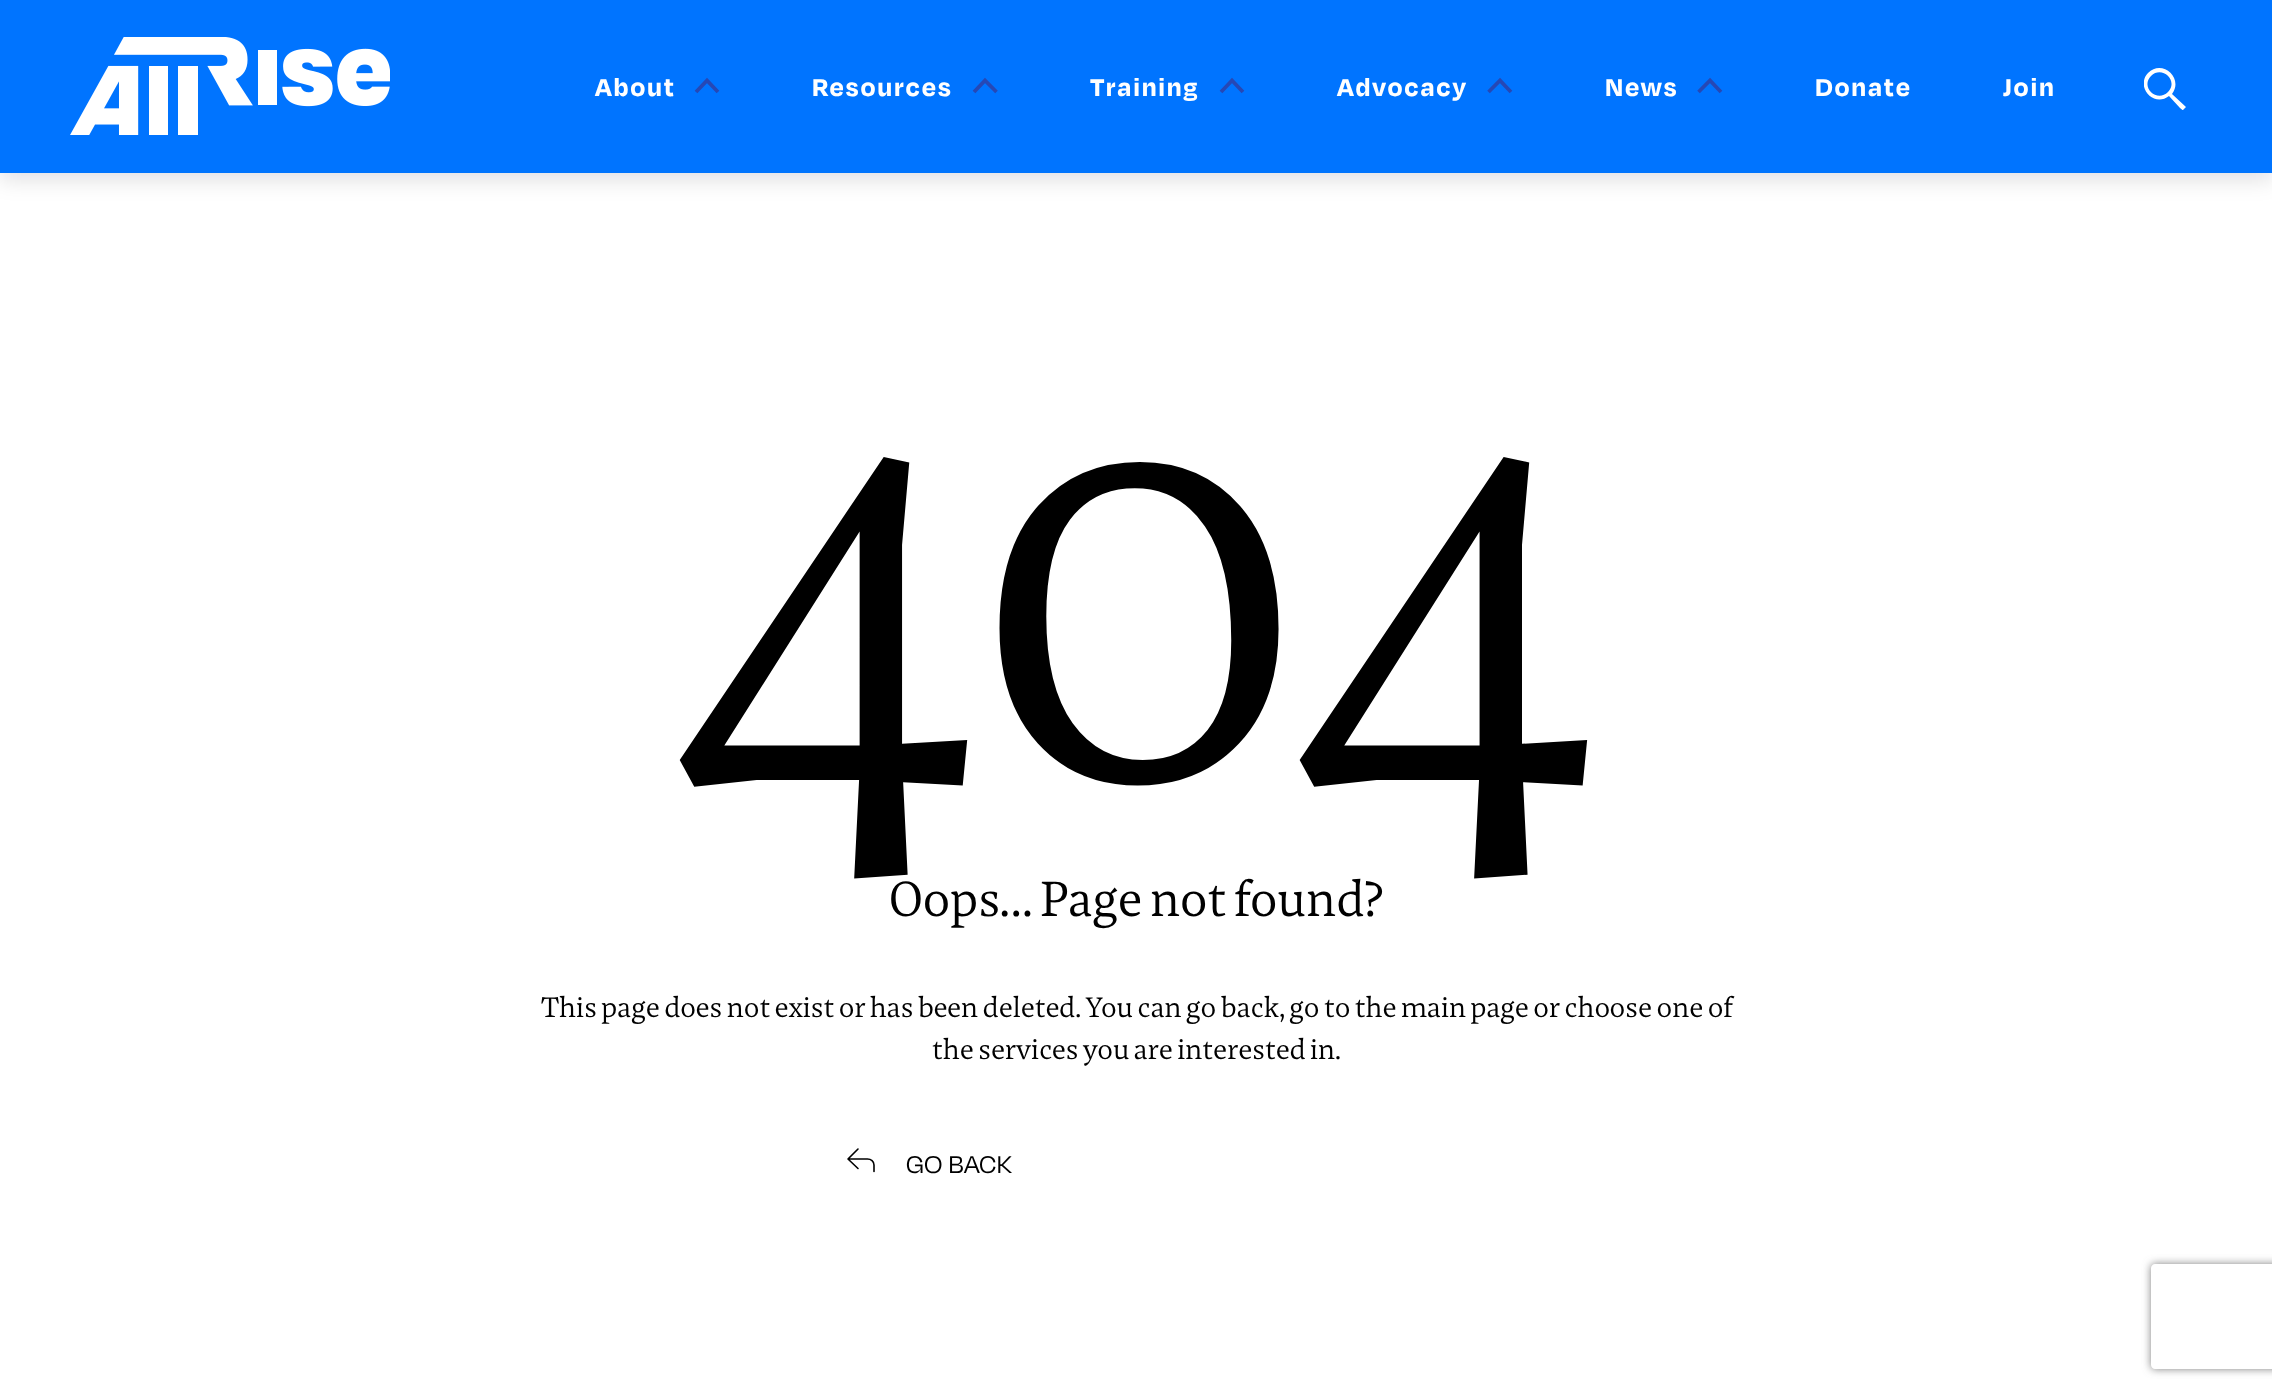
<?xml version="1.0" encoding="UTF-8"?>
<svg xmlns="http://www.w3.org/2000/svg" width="2272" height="1392">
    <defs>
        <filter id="blur1" x="-50%" y="-200%" width="200%" height="500%"><feGaussianBlur stdDeviation="10.5"/></filter>
        <clipPath id="clip1"><rect x="2144" y="68" width="42" height="42"/></clipPath>
        <clipPath id="clip2"><path d="M 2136 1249 H 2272 V 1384 H 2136 Z M 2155 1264 H 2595 C 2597 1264 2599 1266 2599 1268 V 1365 C 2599 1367 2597 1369 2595 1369 H 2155 C 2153 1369 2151 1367 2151 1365 V 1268 C 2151 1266 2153 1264 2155 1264 Z" clip-rule="evenodd"/></clipPath>
        <filter id="blur2" x="-50%" y="-200%" width="200%" height="500%"><feGaussianBlur stdDeviation="4.5"/></filter>
    </defs>
    <rect width="100%" height="100%" fill="#FFFFFF"/>
    <rect x="0" y="7" width="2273" height="173" fill="#00013A" fill-opacity="0.12" filter="url(#blur1)"/>
    <rect x="0" y="0" width="2272" height="173" fill="#0074FF"/>
    <image x="70" y="37" width="320" height="98" href="img_01.png"/>
    <text x="595" y="96" font-family="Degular" font-size="28" font-weight="700" letter-spacing="1.75" fill="#FFFFFF">About</text>
    <path d="M 696 92 L 707 80.5 L 718 92" fill="none" stroke="#2648B5" stroke-width="3.7"/>
    <text x="812" y="96" font-family="Degular" font-size="28" font-weight="700" letter-spacing="1.75" fill="#FFFFFF">Resources</text>
    <path d="M 974 92 L 985 80.5 L 996.5 92" fill="none" stroke="#2648B5" stroke-width="3.7"/>
    <text x="1090" y="96" font-family="Degular" font-size="28" font-weight="700" letter-spacing="1.75" fill="#FFFFFF">Training</text>
    <path d="M 1221 92 L 1232 80.5 L 1243 92" fill="none" stroke="#2648B5" stroke-width="3.7"/>
    <text x="1337" y="96" font-family="Degular" font-size="28" font-weight="700" letter-spacing="1.75" fill="#FFFFFF">Advocacy</text>
    <path d="M 1488.5 92 L 1500 80.5 L 1511 92" fill="none" stroke="#2648B5" stroke-width="3.7"/>
    <text x="1605" y="96" font-family="Degular" font-size="28" font-weight="700" letter-spacing="1.75" fill="#FFFFFF">News</text>
    <path d="M 1698.5 92 L 1710 80.5 L 1721 92" fill="none" stroke="#2648B5" stroke-width="3.7"/>
    <text x="1815" y="96" font-family="Degular" font-size="28" font-weight="700" letter-spacing="1.75" fill="#FFFFFF">Donate</text>
    <text x="2003" y="96" font-family="Degular" font-size="28" font-weight="700" letter-spacing="1.75" fill="#FFFFFF">Join</text>
    <g clip-path="url(#clip1)">
        <path d="M 2186 107 L 2172 94 C 2184 78 2162 59 2148 73 C 2135 87 2154 108 2169 96 L 2180 108 C 2183 110 2182 111 2184 109 Z M 2168 92 C 2157 103 2140 87 2151 76 C 2162 65 2179 81 2168 92 Z" fill="#FFFFFF"/>
    </g>
    <text x="677" y="780" font-family="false" font-size="557" fill="#000000">404</text>
    <text x="889" y="916" font-family="false" font-size="49" fill="#000000">Oops... Page not found?</text>
    <text x="541" y="1017" font-family="false" font-size="28" fill="#000000">This page does not exist or has been deleted. You can go back, go to the main page or choose one of</text>
    <text x="932" y="1059" font-family="false" font-size="28" fill="#000000">the services you are interested in.</text>
    <path d="M 858 1168.5 L 848 1159 L 858 1149 M 874 1171.5 V 1165 C 874 1161.5 871 1159 867.5 1159 H 850" fill="none" stroke="#000000" stroke-width="1.6" stroke-linecap="round" stroke-linejoin="round"/>
    <text x="906" y="1173" font-family="Degular" font-size="28" fill="#000000">GO BACK</text>
    <g clip-path="url(#clip2)">
        <rect x="2151" y="1264" width="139" height="105" rx="4" fill="#808080" filter="url(#blur2)"/>
    </g>
</svg>
